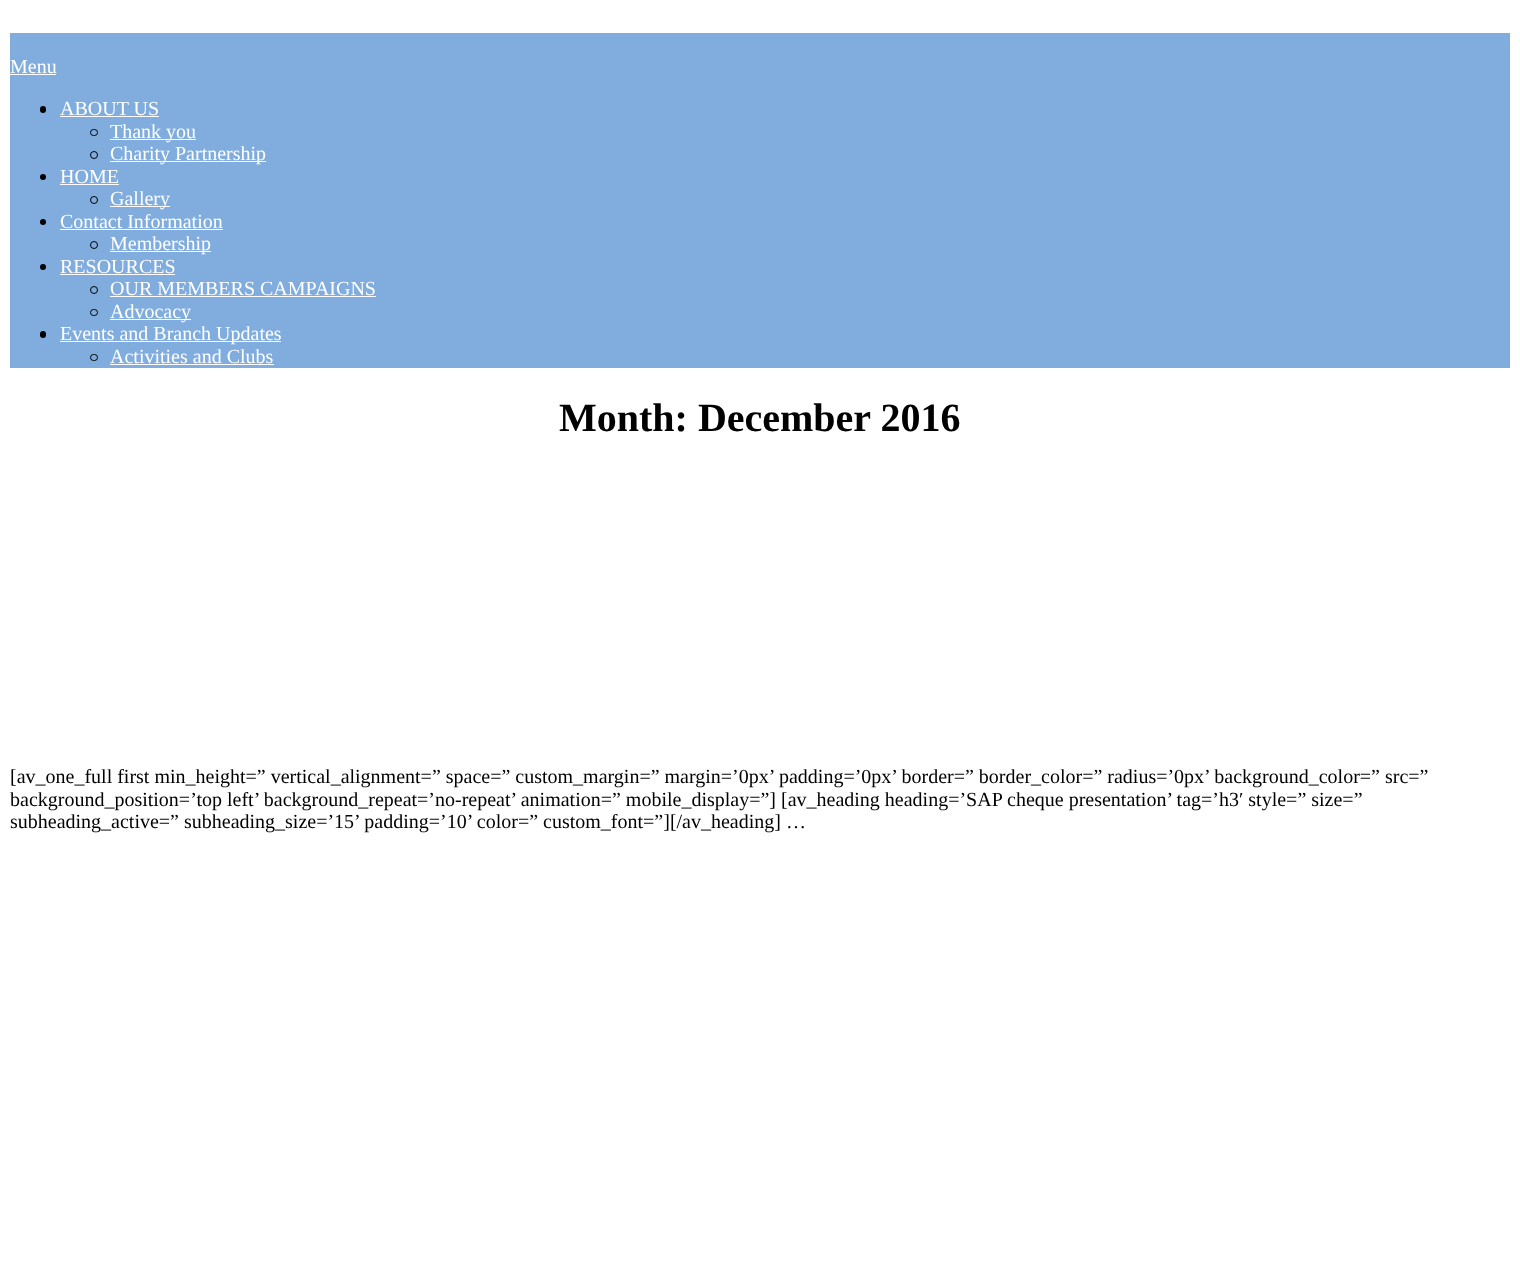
<?xml version="1.0" encoding="UTF-8"?>
<svg xmlns="http://www.w3.org/2000/svg" width="1520" height="1281">
    <rect width="100%" height="100%" fill="#FFFFFF"/>
    <rect x="10" y="33" width="1500" height="335" fill="#80ADDD"/>
    <text x="10" y="73" font-family="Liberation Serif" font-size="20" fill="#FFFFFF">Menu</text>
    <rect x="10" y="74" width="46" height="1" fill="#FFFFFF"/>
    <rect x="40" y="106" width="6" height="7" rx="3" fill="#000000"/>
    <text x="60" y="115" font-family="Liberation Serif" font-size="20" fill="#FFFFFF">ABOUT US</text>
    <rect x="60" y="116" width="99" height="1" fill="#FFFFFF"/>
    <rect x="90.5" y="129.5" width="7" height="6" rx="3" fill="none" stroke="#000000"/>
    <rect x="110" y="139" width="86" height="1" fill="#FFFFFF"/>
    <text x="110" y="138" font-family="Liberation Serif" font-size="20" fill="#FFFFFF">Thank you</text>
    <circle cx="94" cy="155" r="3.5" fill="none" stroke="#000000"/>
    <rect x="110" y="161" width="156" height="1" fill="#FFFFFF"/>
    <text x="110" y="160" font-family="Liberation Serif" font-size="20" fill="#FFFFFF">Charity Partnership</text>
    <circle cx="43" cy="177" r="3" fill="#000000"/>
    <text x="60" y="183" font-family="Liberation Serif" font-size="20" fill="#FFFFFF">HOME</text>
    <rect x="60" y="184" width="59" height="1" fill="#FFFFFF"/>
    <circle cx="94" cy="200" r="3.5" fill="none" stroke="#000000"/>
    <rect x="110" y="206" width="60" height="1" fill="#FFFFFF"/>
    <text x="110" y="205" font-family="Liberation Serif" font-size="20" fill="#FFFFFF">Gallery</text>
    <circle cx="43" cy="222" r="3" fill="#000000"/>
    <text x="60" y="228" font-family="Liberation Serif" font-size="20" fill="#FFFFFF">Contact Information</text>
    <rect x="60" y="229" width="163" height="1" fill="#FFFFFF"/>
    <circle cx="94" cy="245" r="3.5" fill="none" stroke="#000000"/>
    <rect x="110" y="251" width="101" height="1" fill="#FFFFFF"/>
    <text x="110" y="250" font-family="Liberation Serif" font-size="20" fill="#FFFFFF">Membership</text>
    <circle cx="43" cy="267" r="3" fill="#000000"/>
    <text x="60" y="273" font-family="Liberation Serif" font-size="20" fill="#FFFFFF">RESOURCES</text>
    <rect x="60" y="274" width="115" height="1" fill="#FFFFFF"/>
    <circle cx="94" cy="290" r="3.5" fill="none" stroke="#000000"/>
    <text x="110" y="295" font-family="Liberation Serif" font-size="20" fill="#FFFFFF">OUR MEMBERS CAMPAIGNS</text>
    <rect x="110" y="296" width="266" height="1" fill="#FFFFFF"/>
    <rect x="90.5" y="309.5" width="7" height="6" rx="3" fill="none" stroke="#000000"/>
    <rect x="110" y="319" width="81" height="1" fill="#FFFFFF"/>
    <text x="110" y="318" font-family="Liberation Serif" font-size="20" fill="#FFFFFF">Advocacy</text>
    <rect x="40" y="331" width="6" height="7" rx="3" fill="#000000"/>
    <rect x="60" y="341" width="221" height="1" fill="#FFFFFF"/>
    <text x="60" y="340" font-family="Liberation Serif" font-size="20" fill="#FFFFFF">Events and Branch Updates</text>
    <rect x="90.5" y="354.5" width="7" height="6" rx="3" fill="none" stroke="#000000"/>
    <text x="110" y="363" font-family="Liberation Serif" font-size="20" fill="#FFFFFF">Activities and Clubs</text>
    <rect x="110" y="364" width="164" height="1" fill="#FFFFFF"/>
    <text x="559" y="431" font-family="Liberation Serif" font-size="40" font-weight="700" fill="#000000">Month: December 2016</text>
    <text font-family="Liberation Serif" font-size="20" fill="#000000">
        <tspan x="10" y="783">[av_one_full first min_height=” vertical_alignment=” space=” custom_margin=” margin=’0px’ padding=’0px’ border=” border_color=” radius=’0px’ background_color=” src=”</tspan>
        <tspan x="10" y="806">background_position=’top left’ background_repeat=’no-repeat’ animation=” mobile_display=”] [av_heading heading=’SAP cheque presentation’ tag=’h3′ style=” size=”</tspan>
        <tspan x="10" y="828">subheading_active=” subheading_size=’15’ padding=’10’ color=” custom_font=”][/av_heading] …</tspan>
    </text>
</svg>
